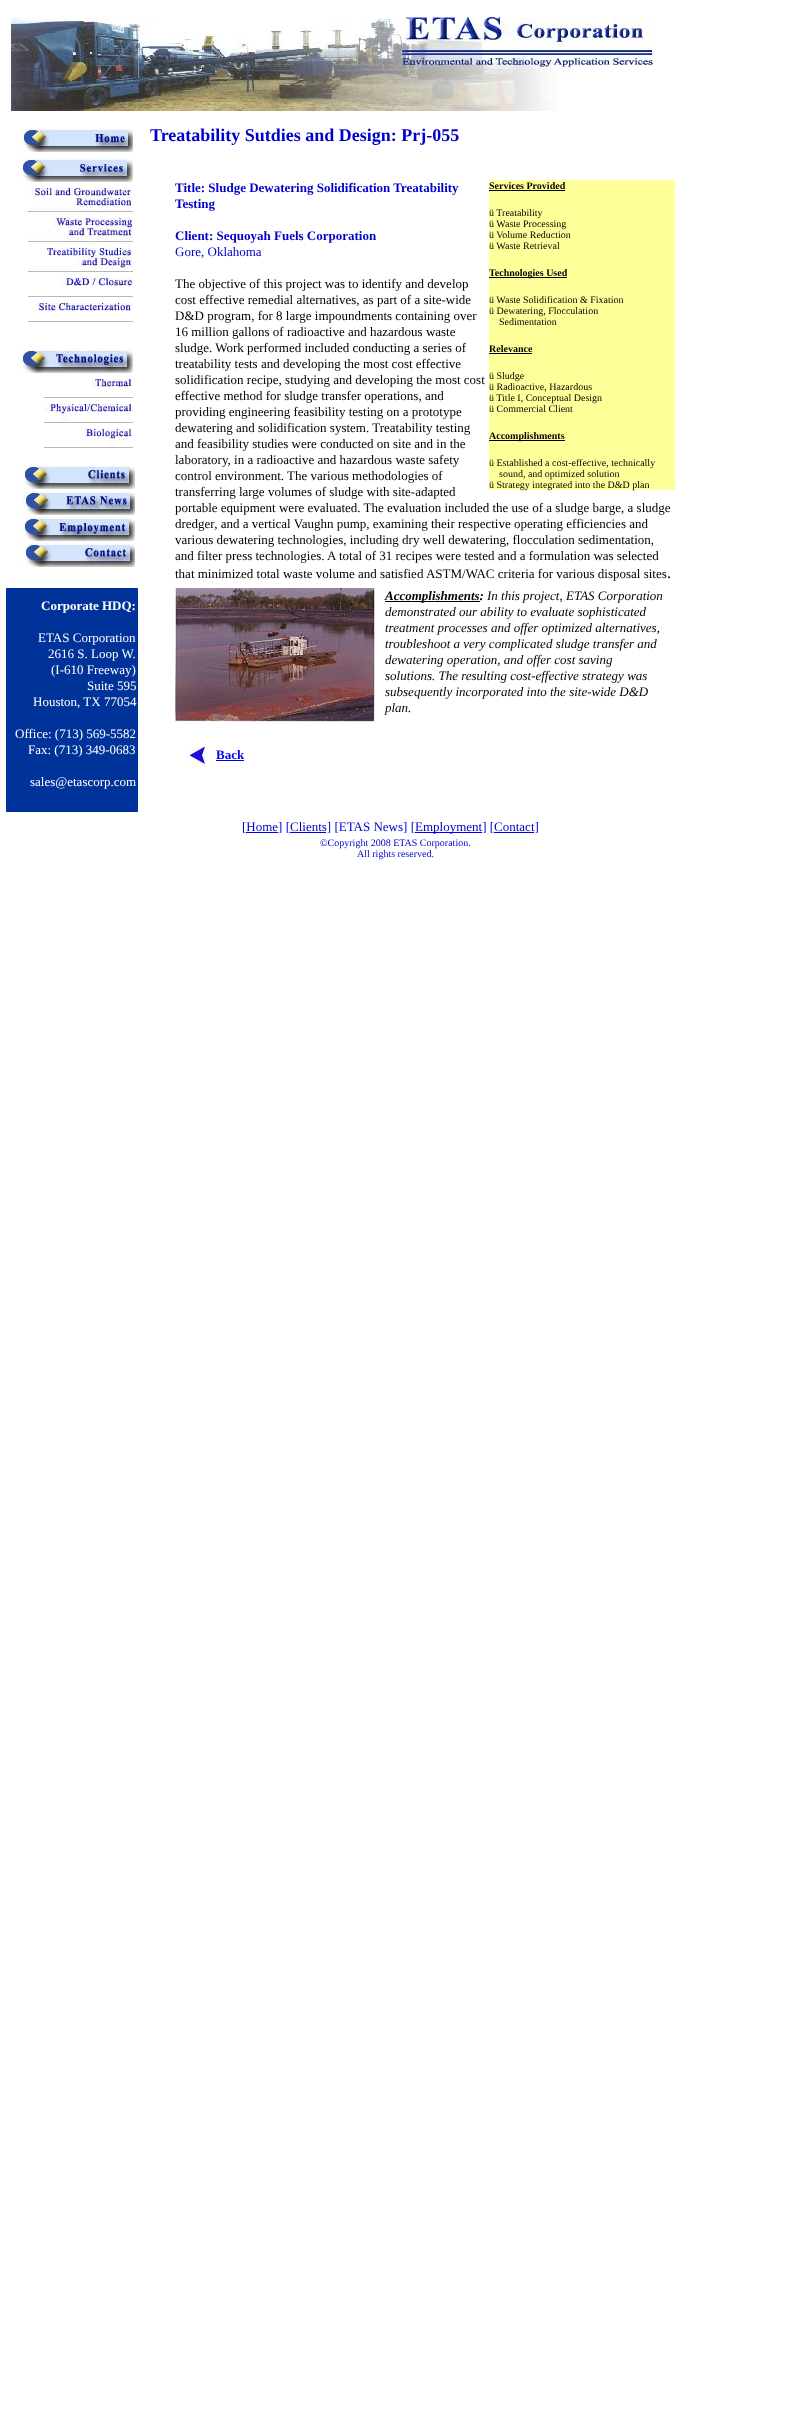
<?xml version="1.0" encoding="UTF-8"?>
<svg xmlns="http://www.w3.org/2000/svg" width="787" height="2430">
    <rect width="100%" height="100%" fill="#FFFFFF"/>
    <image x="11" y="17" width="643" height="94" href="img_01.png"/>
    <image x="21" y="128" width="112" height="24" href="img_02.png"/>
    <image x="21" y="158" width="112" height="24" href="img_03.png"/>
    <image x="28" y="188" width="105" height="24" href="img_04.png"/>
    <image x="28" y="218" width="105" height="24" href="img_05.png"/>
    <image x="28" y="248" width="105" height="24" href="img_06.png"/>
    <image x="28" y="278" width="105" height="19" href="img_07.png"/>
    <image x="28" y="303" width="105" height="19" href="img_08.png"/>
    <image x="21" y="349" width="112" height="24" href="img_09.png"/>
    <image x="44" y="379" width="89" height="19" href="img_10.png"/>
    <image x="44" y="404" width="89" height="19" href="img_11.png"/>
    <image x="44" y="429" width="89" height="19" href="img_12.png"/>
    <image x="23" y="465" width="112" height="24" href="img_13.png"/>
    <image x="23" y="491" width="112" height="24" href="img_14.png"/>
    <image x="23" y="517" width="112" height="24" href="img_15.png"/>
    <image x="23" y="543" width="112" height="24" href="img_16.png"/>
    <rect x="6" y="588" width="132" height="224" fill="#003399"/>
    <text x="41" y="610" font-family="Liberation Serif" font-size="13" font-weight="700" fill="#FFFFFF">Corporate HDQ:</text>
    <text x="38" y="642" font-family="Liberation Serif" font-size="13" fill="#FFFFFF">ETAS Corporation</text>
    <text x="48" y="658" font-family="Liberation Serif" font-size="13" fill="#FFFFFF">2616 S. Loop W.</text>
    <text x="51" y="674" font-family="Liberation Serif" font-size="13" fill="#FFFFFF">(I-610 Freeway)</text>
    <text x="87" y="690" font-family="Liberation Serif" font-size="13" fill="#FFFFFF">Suite 595</text>
    <text x="33" y="706" font-family="Liberation Serif" font-size="13" fill="#FFFFFF">Houston, TX 77054</text>
    <text x="15" y="738" font-family="Liberation Serif" font-size="13" fill="#FFFFFF">Office: (713) 569-5582</text>
    <text x="28" y="754" font-family="Liberation Serif" font-size="13" fill="#FFFFFF">Fax: (713) 349-0683</text>
    <text x="30" y="786" font-family="Liberation Serif" font-size="13" fill="#FFFFFF">sales@etascorp.com</text>
    <text x="150" y="141" font-family="Liberation Serif" font-size="18" font-weight="700" fill="#0000CC">Treatability Sutdies and Design: Prj-055</text>
    <text x="175" y="192" font-family="Liberation Serif" font-size="13" font-weight="700" fill="#0000CC">Title: Sludge Dewatering Solidification Treatability</text>
    <rect x="489" y="180" width="186" height="310" fill="#FFFF99"/>
    <text x="489" y="189" font-family="Liberation Serif" font-size="10" font-weight="700" fill="#000000">Services Provided</text>
    <rect x="489" y="190" width="76" height="1" fill="#000000"/>
    <text font-family="Liberation Serif" font-size="10" fill="#000000">
        <tspan x="489" y="216">ü Treatability</tspan>
        <tspan x="489" y="227">ü Waste Processing</tspan>
        <tspan x="489" y="238">ü Volume Reduction</tspan>
        <tspan x="489" y="249">ü Waste Retrieval</tspan>
    </text>
    <rect x="489" y="277" width="78" height="1" fill="#000000"/>
    <text x="489" y="276" font-family="Liberation Serif" font-size="10" font-weight="700" fill="#000000">Technologies Used</text>
    <text font-family="Liberation Serif" font-size="10" fill="#000000">
        <tspan x="489" y="303">ü Waste Solidification &amp; Fixation</tspan>
        <tspan x="489" y="314">ü Dewatering, Flocculation</tspan>
    </text>
    <text x="499" y="325" font-family="Liberation Serif" font-size="10" fill="#000000">Sedimentation</text>
    <text x="489" y="352" font-family="Liberation Serif" font-size="10" font-weight="700" fill="#000000">Relevance</text>
    <rect x="489" y="353" width="43" height="1" fill="#000000"/>
    <text font-family="Liberation Serif" font-size="10" fill="#000000">
        <tspan x="489" y="379">ü Sludge</tspan>
        <tspan x="489" y="390">ü Radioactive, Hazardous</tspan>
        <tspan x="489" y="401">ü Title I, Conceptual Design</tspan>
        <tspan x="489" y="412">ü Commercial Client</tspan>
    </text>
    <rect x="489" y="440" width="76" height="1" fill="#000000"/>
    <text x="489" y="439" font-family="Liberation Serif" font-size="10" font-weight="700" fill="#000000">Accomplishments</text>
    <text x="489" y="466" font-family="Liberation Serif" font-size="10" fill="#000000">ü Established a cost-effective, technically</text>
    <text x="499" y="477" font-family="Liberation Serif" font-size="10" fill="#000000">sound, and optimized solution</text>
    <text x="489" y="488" font-family="Liberation Serif" font-size="10" fill="#000000">ü Strategy integrated into the D&amp;D plan</text>
    <text x="175" y="208" font-family="Liberation Serif" font-size="13" font-weight="700" fill="#0000CC">Testing</text>
    <text x="175" y="240" font-family="Liberation Serif" font-size="13" font-weight="700" fill="#0000CC">Client: Sequoyah Fuels Corporation</text>
    <text x="175" y="256" font-family="Liberation Serif" font-size="13" fill="#0000CC">Gore, Oklahoma</text>
    <text font-family="Liberation Serif" font-size="13" fill="#000000">
        <tspan x="175" y="288">The objective of this project was to identify and develop</tspan>
        <tspan x="175" y="304">cost effective remedial alternatives, as part of a site-wide</tspan>
        <tspan x="175" y="320">D&amp;D program, for 8 large impoundments containing over</tspan>
        <tspan x="175" y="336">16 million gallons of radioactive and hazardous waste</tspan>
        <tspan x="175" y="352">sludge. Work performed included conducting a series of</tspan>
        <tspan x="175" y="368">treatability tests and developing the most cost effective</tspan>
        <tspan x="175" y="384">solidification recipe, studying and developing the most cost</tspan>
        <tspan x="175" y="400">effective method for sludge transfer operations, and</tspan>
        <tspan x="175" y="416">providing engineering feasibility testing on a prototype</tspan>
        <tspan x="175" y="432">dewatering and solidification system. Treatability testing</tspan>
        <tspan x="175" y="448">and feasibility studies were conducted on site and in the</tspan>
        <tspan x="175" y="464">laboratory, in a radioactive and hazardous waste safety</tspan>
        <tspan x="175" y="480">control environment. The various methodologies of</tspan>
        <tspan x="175" y="496">transferring large volumes of sludge with site-adapted</tspan>
        <tspan x="175" y="512">portable equipment were evaluated. The evaluation included the use of a sludge barge, a sludge</tspan>
        <tspan x="175" y="528">dredger, and a vertical Vaughn pump, examining their respective operating efficiencies and</tspan>
        <tspan x="175" y="544">various dewatering technologies, including dry well dewatering, flocculation sedimentation,</tspan>
        <tspan x="175" y="560">and filter press technologies. A total of 31 recipes were tested and a formulation was selected</tspan>
        <tspan x="175" y="578">that minimized total waste volume and satisfied ASTM/WAC criteria for various disposal sites</tspan>
    </text>
    <text x="667" y="578" font-family="Liberation Serif" font-size="16" fill="#000000">.</text>
    <image x="175" y="588" width="200" height="134" href="img_17.png"/>
    <rect x="385" y="601" width="95" height="1" fill="#000000"/>
    <text x="385" y="600" font-family="Liberation Serif" font-size="13" font-weight="700" font-style="italic" fill="#000000">Accomplishments:</text>
    <text x="487" y="600" font-family="Liberation Serif" font-size="13" font-style="italic" fill="#000000">In this project, ETAS Corporation</text>
    <text font-family="Liberation Serif" font-size="13" font-style="italic" fill="#000000">
        <tspan x="385" y="616">demonstrated our ability to evaluate sophisticated</tspan>
        <tspan x="385" y="632">treatment processes and offer optimized alternatives,</tspan>
        <tspan x="385" y="648">troubleshoot a very complicated sludge transfer and</tspan>
        <tspan x="385" y="664">dewatering operation, and offer cost saving</tspan>
        <tspan x="385" y="680">solutions. The resulting cost-effective strategy was</tspan>
        <tspan x="385" y="696">subsequently incorporated into the site-wide D&amp;D</tspan>
        <tspan x="385" y="712">plan.</tspan>
    </text>
    <image x="190" y="747" width="15" height="17" href="img_18.png"/>
    <text x="216" y="759" font-family="Liberation Serif" font-size="13" font-weight="700" fill="#0000EE">Back</text>
    <rect x="216" y="760" width="28" height="1" fill="#0000EE"/>
    <text x="242" y="831" font-family="Liberation Serif" font-size="13" fill="#0000CC">[Home] [Clients] [ETAS News] [</text>
    <rect x="415" y="832" width="67" height="1" fill="#0000EE"/>
    <text x="415" y="831" font-family="Liberation Serif" font-size="13" fill="#0000CC">Employment] [Contact]</text>
    <rect x="246" y="832" width="32" height="1" fill="#0000EE"/>
    <rect x="290" y="832" width="36" height="1" fill="#0000EE"/>
    <rect x="494" y="832" width="40" height="1" fill="#0000EE"/>
    <text x="320" y="846" font-family="Liberation Serif" font-size="10" fill="#0000CC">©Copyright 2008 ETAS Corporation.</text>
    <text x="357" y="857" font-family="Liberation Serif" font-size="10" fill="#0000CC">All rights reserved.</text>
</svg>
